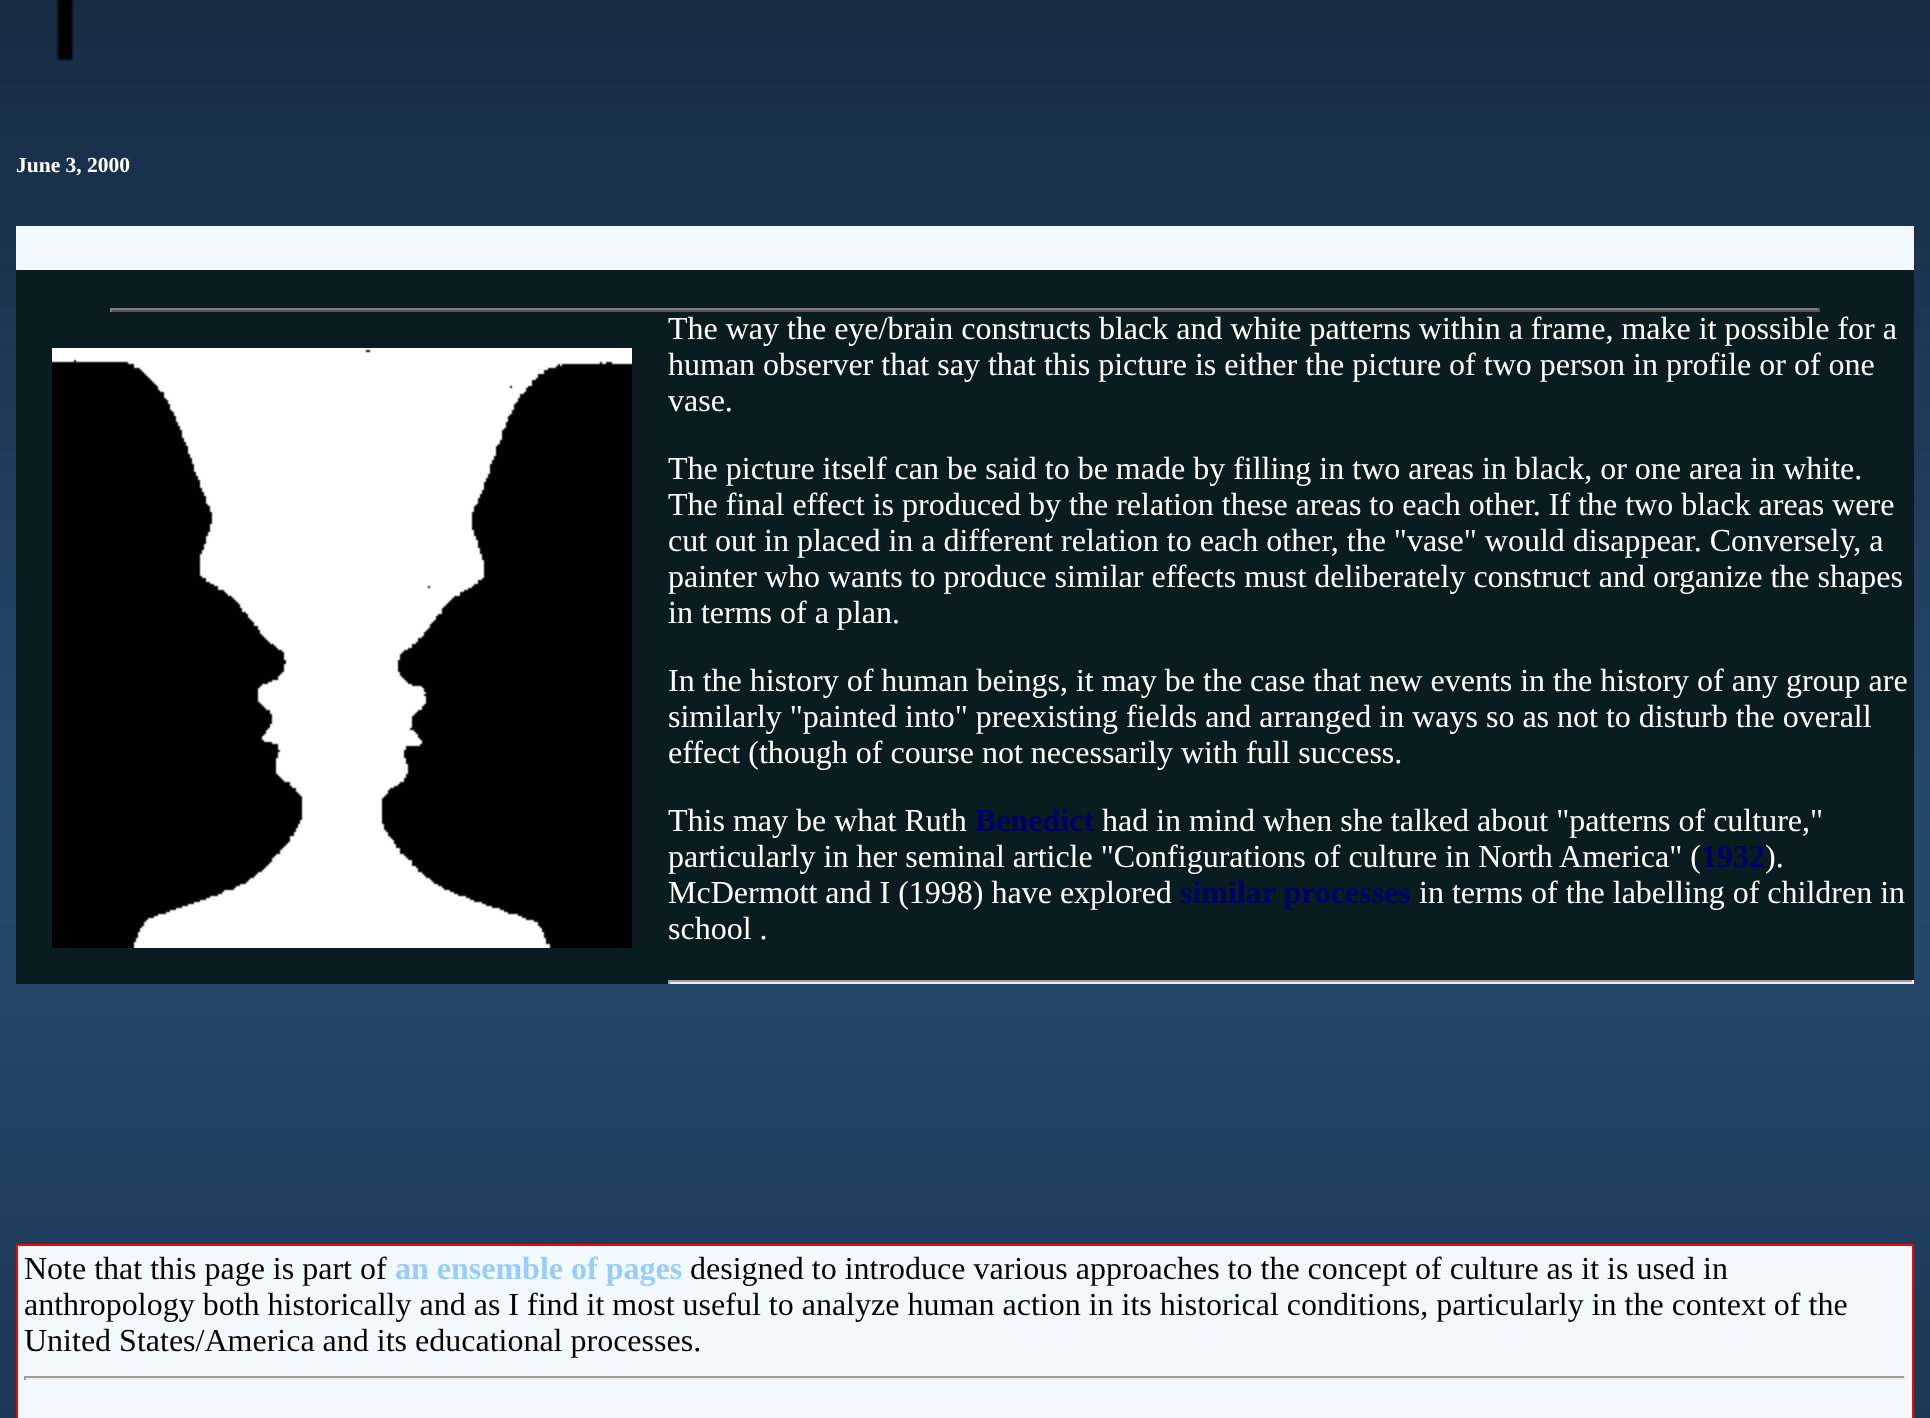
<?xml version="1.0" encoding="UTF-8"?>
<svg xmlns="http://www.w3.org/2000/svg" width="1930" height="1418">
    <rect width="100%" height="100%" fill="#FFFFFF"/>
    <image x="0" y="0" width="1930" height="1418" href="img_01.png"/>
    <image x="56" y="0" width="18" height="61" href="img_02.png"/>
    <text x="16" y="172" font-family="Liberation Serif" font-size="21.5" font-weight="700" fill="#FFFFFF">June 3, 2000</text>
    <rect x="16" y="270" width="1898" height="714" fill="#0A1C1F"/>
    <rect x="16" y="226" width="1898" height="44" fill="#F2FAFF"/>
    <rect x="110" y="308" width="1710" height="2" fill="#808080"/>
    <rect x="1818" y="308" width="2" height="4" fill="#555555"/>
    <rect x="110" y="310" width="1710" height="2" fill="#555555"/>
    <rect x="110" y="308" width="2" height="4" fill="#808080"/>
    <text x="668" y="339" font-family="Liberation Serif" font-size="32" fill="#FFFFFF">The way the eye/brain constructs black and white patterns within a frame, make it possible for a</text>
    <image x="52" y="348" width="580" height="600" href="img_03.png"/>
    <text font-family="Liberation Serif" font-size="32" fill="#FFFFFF">
        <tspan x="668" y="375">human observer that say that this picture is either the picture of two person in profile or of one</tspan>
        <tspan x="668" y="411">vase.</tspan>
    </text>
    <text font-family="Liberation Serif" font-size="32" fill="#FFFFFF">
        <tspan x="668" y="479">The picture itself can be said to be made by filling in two areas in black, or one area in white.</tspan>
        <tspan x="668" y="515">The final effect is produced by the relation these areas to each other. If the two black areas were</tspan>
        <tspan x="668" y="551">cut out in placed in a different relation to each other, the "vase" would disappear. Conversely, a</tspan>
        <tspan x="668" y="587">painter who wants to produce similar effects must deliberately construct and organize the shapes</tspan>
        <tspan x="668" y="623">in terms of a plan.</tspan>
    </text>
    <text font-family="Liberation Serif" font-size="32" fill="#FFFFFF">
        <tspan x="668" y="691">In the history of human beings, it may be the case that new events in the history of any group are</tspan>
        <tspan x="668" y="727">similarly "painted into" preexisting fields and arranged in ways so as not to disturb the overall</tspan>
        <tspan x="668" y="763">effect (though of course not necessarily with full success.</tspan>
    </text>
    <text x="668" y="831" font-family="Liberation Serif" font-size="32" fill="#FFFFFF">This may be what Ruth</text>
    <text x="975" y="831" font-family="Liberation Serif" font-size="32" font-weight="700" fill="#000066">Benedict</text>
    <text x="1102" y="831" font-family="Liberation Serif" font-size="32" fill="#FFFFFF">had in mind when she talked about "patterns of culture,"</text>
    <text x="668" y="867" font-family="Liberation Serif" font-size="32" fill="#FFFFFF">particularly in her seminal article "Configurations of culture in North America" (</text>
    <text x="1701" y="867" font-family="Liberation Serif" font-size="32" font-weight="700" fill="#000066">1932</text>
    <text x="1765" y="867" font-family="Liberation Serif" font-size="32" fill="#FFFFFF">).</text>
    <text x="668" y="903" font-family="Liberation Serif" font-size="32" fill="#FFFFFF">McDermott and I (1998) have explored</text>
    <text x="1180" y="903" font-family="Liberation Serif" font-size="32" font-weight="700" fill="#000066">similar processes</text>
    <text x="1419" y="903" font-family="Liberation Serif" font-size="32" fill="#FFFFFF">in terms of the labelling of children in</text>
    <text x="668" y="939" font-family="Liberation Serif" font-size="32" fill="#FFFFFF">school .</text>
    <rect x="668" y="980" width="1246" height="2" fill="#9F9F9F"/>
    <rect x="1912" y="980" width="2" height="4" fill="#EEEEEE"/>
    <rect x="668" y="982" width="1246" height="2" fill="#EEEEEE"/>
    <rect x="668" y="980" width="2" height="4" fill="#9F9F9F"/>
    <rect x="17" y="1245" width="1896" height="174" fill="#F2FAFF" stroke="#FF0000" stroke-width="2"/>
    <text x="24" y="1279" font-family="Liberation Serif" font-size="32" fill="#000000">Note that this page is part of</text>
    <text x="395" y="1279" font-family="Liberation Serif" font-size="32" font-weight="700" fill="#99CCFF">an ensemble of pages</text>
    <text x="690" y="1279" font-family="Liberation Serif" font-size="32" fill="#000000">designed to introduce various approaches to the concept of culture as it is used in</text>
    <text font-family="Liberation Serif" font-size="32" fill="#000000">
        <tspan x="24" y="1315">anthropology both historically and as I find it most useful to analyze human action in its historical conditions, particularly in the context of the</tspan>
        <tspan x="24" y="1351">United States/America and its educational processes.</tspan>
    </text>
    <rect x="24" y="1376" width="1882" height="2" fill="#9F9F9F"/>
    <rect x="1904" y="1376" width="2" height="4" fill="#EEEEEE"/>
    <rect x="24" y="1378" width="1882" height="2" fill="#EEEEEE"/>
    <rect x="24" y="1376" width="2" height="4" fill="#9F9F9F"/>
</svg>
